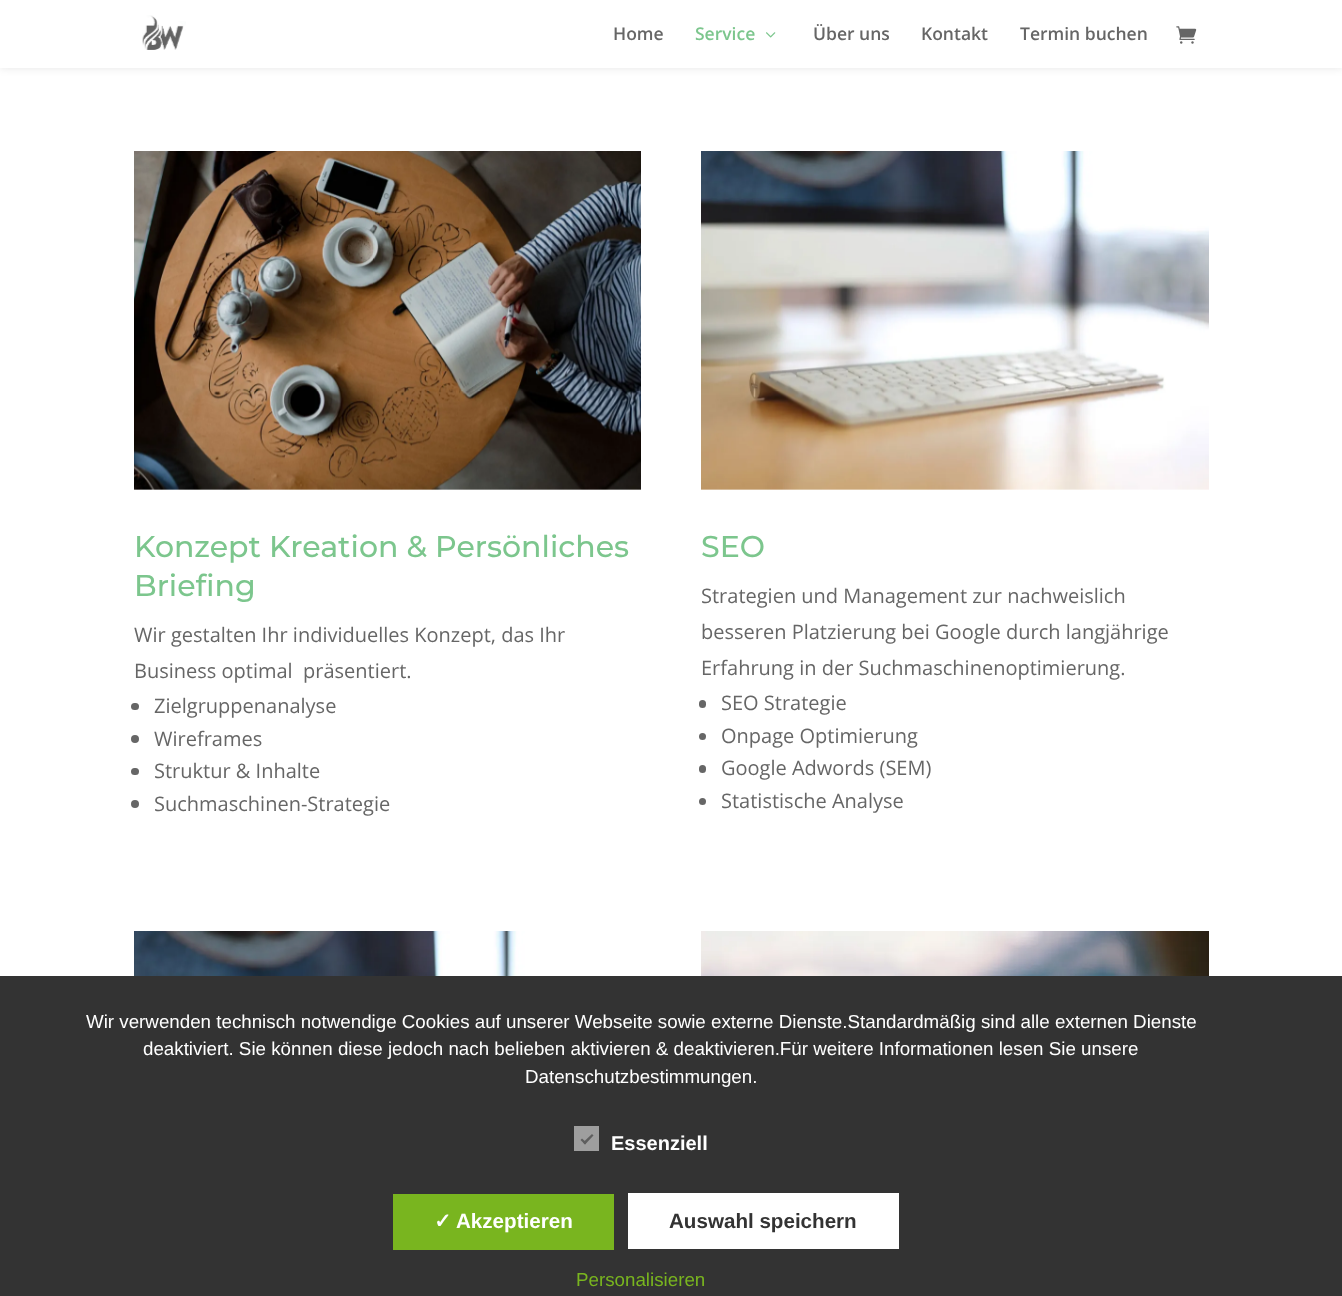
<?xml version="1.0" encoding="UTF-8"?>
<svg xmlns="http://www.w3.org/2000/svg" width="1342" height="1296">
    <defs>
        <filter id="blur1" x="-50%" y="-200%" width="200%" height="500%"><feGaussianBlur stdDeviation="4.5"/></filter>
    </defs>
    <rect width="100%" height="100%" fill="#FFFFFF"/>
    <rect x="0" y="0" width="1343" height="68" fill="#000000" fill-opacity="0.1" filter="url(#blur1)"/>
    <rect x="0" y="0" width="1342" height="68" fill="#FFFFFF"/>
    <image x="142" y="15" width="44" height="35" href="img_01.png"/>
    <text x="613" y="40" font-family="Open Sans" font-size="17.5" font-weight="600" fill="#666666">Home</text>
    <text x="695" y="40" font-family="Open Sans" font-size="17.5" font-weight="600" fill="#7CC68D">Service</text>
    <image x="766" y="32" width="10" height="6" href="img_02.png"/>
    <text x="813" y="40" font-family="Open Sans" font-size="17.5" font-weight="600" fill="#666666">Über uns</text>
    <text x="921" y="40" font-family="Open Sans" font-size="17.5" font-weight="600" fill="#666666">Kontakt</text>
    <text x="1020" y="40" font-family="Open Sans" font-size="17.5" font-weight="600" fill="#666666">Termin buchen</text>
    <image x="1176" y="26" width="21" height="18" href="img_03.png"/>
    <image x="134" y="151" width="507" height="339" href="img_04.png"/>
    <text font-family="Montserrat" font-size="30" font-weight="500" fill="#7CC68D">
        <tspan x="134" y="557">Konzept Kreation &amp; Persönliches</tspan>
        <tspan x="134" y="596">Briefing</tspan>
    </text>
    <text font-family="Open Sans" font-size="20" fill="#666666" xml:space="preserve"><tspan x="134" y="642">Wir gestalten Ihr individuelles Konzept, das Ihr</tspan><tspan x="134" y="678">Business optimal  präsentiert.</tspan></text>
    <rect x="131" y="703" width="8" height="7" rx="3.5" fill="#666666"/>
    <text x="154" y="713" font-family="Open Sans" font-size="20" fill="#666666">Zielgruppenanalyse</text>
    <circle cx="135" cy="739" r="4" fill="#666666"/>
    <text x="154" y="746" font-family="Open Sans" font-size="20" fill="#666666">Wireframes</text>
    <rect x="131" y="768" width="8" height="7" rx="3.5" fill="#666666"/>
    <text x="154" y="778" font-family="Open Sans" font-size="20" fill="#666666">Struktur &amp; Inhalte</text>
    <circle cx="135" cy="804" r="4" fill="#666666"/>
    <text x="154" y="811" font-family="Open Sans" font-size="20" fill="#666666">Suchmaschinen-Strategie</text>
    <image x="701" y="151" width="508" height="339" href="img_05.png"/>
    <text x="701" y="557" font-family="Montserrat" font-size="30" font-weight="500" fill="#7CC68D">SEO</text>
    <text font-family="Open Sans" font-size="20" fill="#666666">
        <tspan x="701" y="603">Strategien und Management zur nachweislich</tspan>
        <tspan x="701" y="639">besseren Platzierung bei Google durch langjährige</tspan>
        <tspan x="701" y="675">Erfahrung in der Suchmaschinenoptimierung.</tspan>
    </text>
    <rect x="699" y="700" width="7" height="8" rx="3.5" fill="#666666"/>
    <text x="721" y="710" font-family="Open Sans" font-size="20" fill="#666666">SEO Strategie</text>
    <circle cx="702.5" cy="736.5" r="3.5" fill="#666666"/>
    <text x="721" y="743" font-family="Open Sans" font-size="20" fill="#666666">Onpage Optimierung</text>
    <rect x="699" y="765" width="7" height="8" rx="3.5" fill="#666666"/>
    <text x="721" y="775" font-family="Open Sans" font-size="20" fill="#666666">Google Adwords (SEM)</text>
    <circle cx="702.5" cy="801.5" r="3.5" fill="#666666"/>
    <text x="721" y="808" font-family="Open Sans" font-size="20" fill="#666666">Statistische Analyse</text>
    <image x="134" y="931" width="507" height="45" href="img_06.png"/>
    <image x="701" y="931" width="508" height="45" href="img_07.png"/>
    <rect x="0" y="976" width="1342" height="320" fill="#333333"/>
    <text x="86" y="1028" font-family="Liberation Sans" font-size="18.75" fill="#FFFFFF">Wir verwenden technisch notwendige Cookies auf unserer Webseite sowie externe Dienste.Standardmäßig sind alle externen Dienste</text>
    <text x="143" y="1055" font-family="Liberation Sans" font-size="18.75" fill="#FFFFFF">deaktiviert. Sie können diese jedoch nach belieben aktivieren &amp; deaktivieren.Für weitere Informationen lesen Sie unsere</text>
    <text x="525" y="1083" font-family="Liberation Sans" font-size="18.75" fill="#FFFFFF">Datenschutzbestimmungen.</text>
    <rect x="574" y="1126" width="25" height="25" fill="#9E9E9E"/>
    <path d="M 592 1134 L 593.5 1135.5 L 585 1144.5 L 583 1142.5 Z" fill="#5E5E5E"/>
    <path d="M 582 1138.5 L 586.5 1142.5 L 585 1144.5 L 580.5 1140 Z" fill="#5E5E5E"/>
    <text x="611" y="1150" font-family="Liberation Sans" font-size="20" font-weight="700" fill="#FFFFFF">Essenziell</text>
    <rect x="393" y="1194" width="221" height="56" fill="#79B51F"/>
    <text x="434" y="1228" font-family="DejaVu Sans" font-size="20.6" font-weight="700" fill="#FFFFFF">✓</text>
    <text x="456" y="1228" font-family="Liberation Sans" font-size="20.6" font-weight="700" fill="#FFFFFF">Akzeptieren</text>
    <rect x="628" y="1193" width="271" height="56" fill="#FFFFFF"/>
    <text x="669" y="1228" font-family="Liberation Sans" font-size="20.6" font-weight="700" fill="#333333">Auswahl speichern</text>
    <text x="576" y="1286" font-family="Liberation Sans" font-size="18.75" fill="#79B51F">Personalisieren</text>
</svg>
